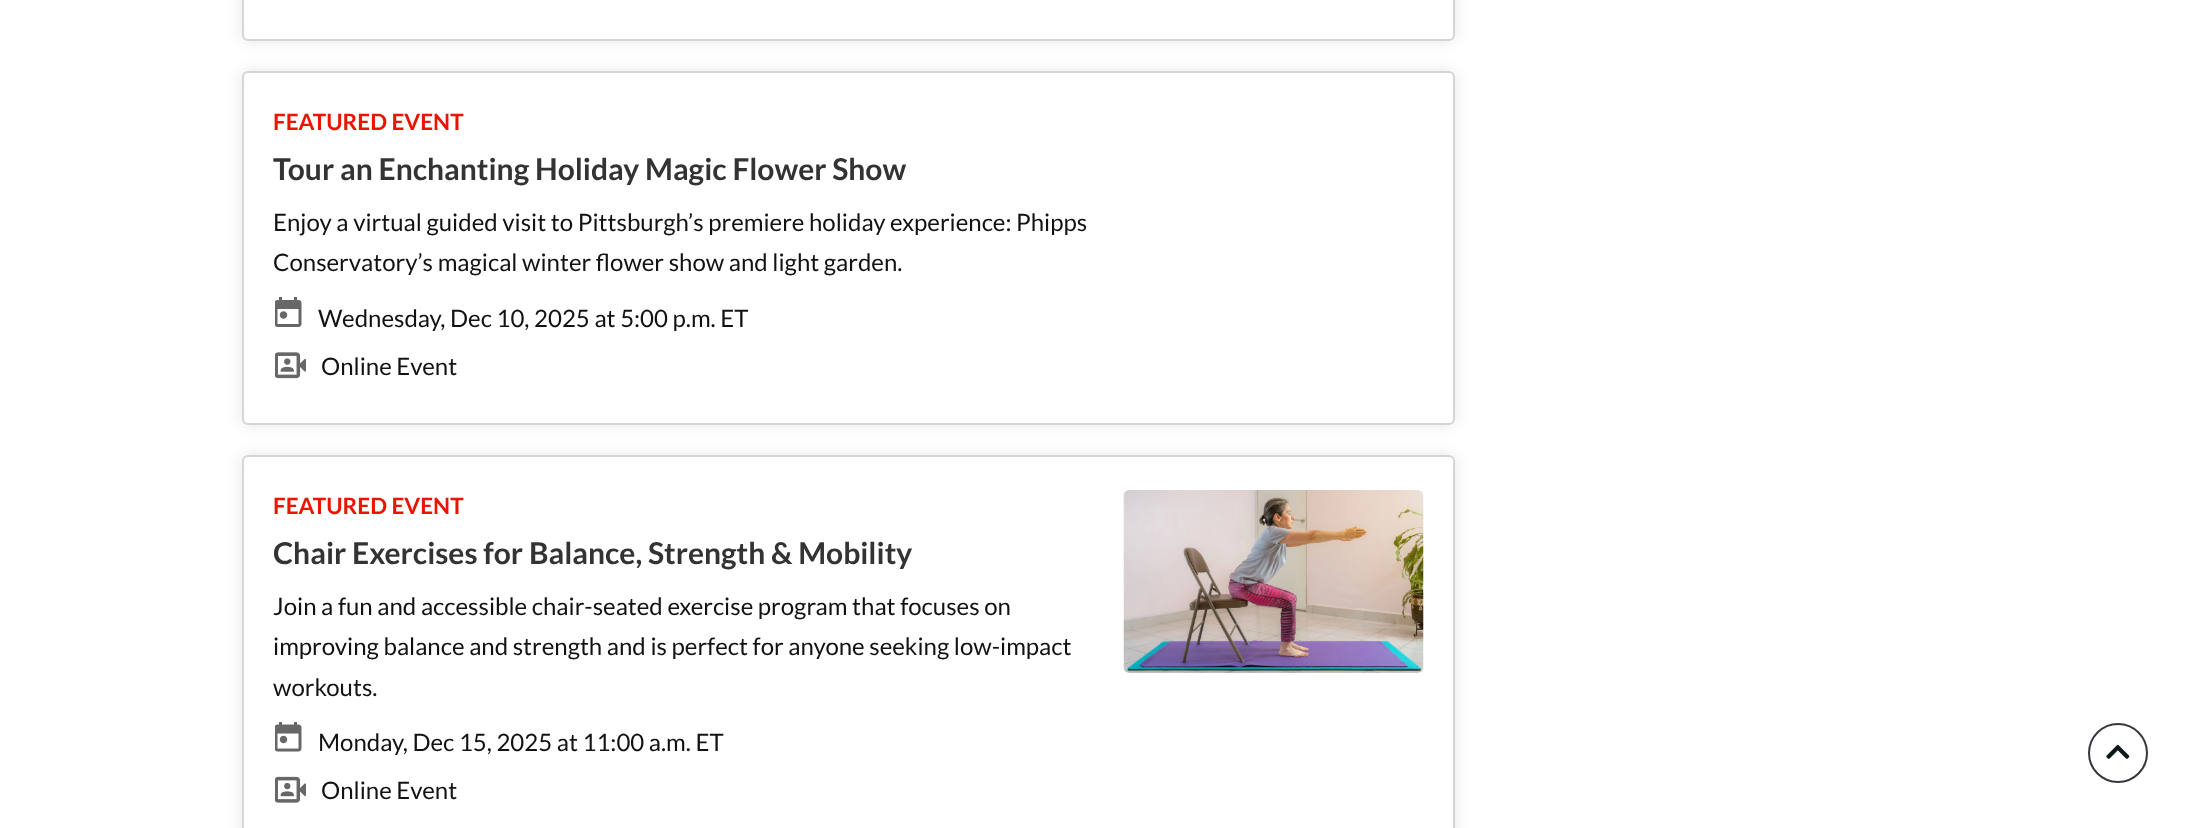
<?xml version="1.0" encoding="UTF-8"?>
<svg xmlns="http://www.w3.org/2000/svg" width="2193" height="828">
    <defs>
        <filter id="blur1" x="-50%" y="-200%" width="200%" height="500%"><feGaussianBlur stdDeviation="7.5"/></filter>
        <clipPath id="clip1"><path d="M 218 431 H 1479 V 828 H 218 Z M 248 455 H 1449 C 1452.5 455 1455 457.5 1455 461 V 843 C 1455 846.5 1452.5 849 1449 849 H 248 C 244.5 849 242 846.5 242 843 V 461 C 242 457.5 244.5 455 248 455 Z" clip-rule="evenodd"/></clipPath>
    </defs>
    <rect width="100%" height="100%" fill="#FFFFFF"/>
    <rect x="242" y="-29" width="1213" height="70" rx="6" fill="#000000" fill-opacity="0.1" filter="url(#blur1)"/>
    <rect x="243" y="-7" width="1211" height="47" rx="5" fill="#FFFFFF" stroke="#D5D5D5" stroke-width="2"/>
    <rect x="242" y="71" width="1213" height="354" rx="6" fill="#000000" fill-opacity="0.1" filter="url(#blur1)"/>
    <rect x="243" y="72" width="1211" height="352" rx="5" fill="#FFFFFF" stroke="#D5D5D5" stroke-width="2"/>
    <text x="273" y="130" font-family="Lato" font-size="22.5" font-weight="700" fill="#EC1300">FEATURED EVENT</text>
    <text x="273" y="180" font-family="Lato" font-size="30" font-weight="700" fill="#333333">Tour an Enchanting Holiday Magic Flower Show</text>
    <text font-family="Lato" font-size="24" fill="#121212">
        <tspan x="273" y="231">Enjoy a virtual guided visit to Pittsburgh’s premiere holiday experience: Phipps</tspan>
        <tspan x="273" y="271">Conservatory’s magical winter flower show and light garden.</tspan>
    </text>
    <image x="275" y="297" width="27" height="30" href="img_01.png"/>
    <text x="318" y="327" font-family="Lato" font-size="24" fill="#121212">Wednesday, Dec 10, 2025 at 5:00 p.m. ET</text>
    <image x="275" y="352" width="31" height="27" href="img_02.png"/>
    <text x="321" y="375" font-family="Lato" font-size="24" fill="#121212">Online Event</text>
    <g clip-path="url(#clip1)">
        <rect x="242" y="455" width="1213" height="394" rx="6" fill="#000000" fill-opacity="0.1" filter="url(#blur1)"/>
    </g>
    <rect x="243" y="456" width="1211" height="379" rx="5" fill="none" stroke="#D5D5D5" stroke-width="2"/>
    <text x="273" y="514" font-family="Lato" font-size="22.5" font-weight="700" fill="#EC1300">FEATURED EVENT</text>
    <image x="1123" y="490" width="301" height="183" href="img_03.png"/>
    <text x="273" y="564" font-family="Lato" font-size="30" font-weight="700" fill="#333333">Chair Exercises for Balance, Strength &amp; Mobility</text>
    <text font-family="Lato" font-size="24" fill="#121212">
        <tspan x="273" y="615">Join a fun and accessible chair-seated exercise program that focuses on</tspan>
        <tspan x="273" y="655">improving balance and strength and is perfect for anyone seeking low-impact</tspan>
        <tspan x="273" y="696">workouts.</tspan>
    </text>
    <image x="275" y="722" width="27" height="30" href="img_04.png"/>
    <text x="318" y="751" font-family="Lato" font-size="24" fill="#121212">Monday, Dec 15, 2025 at 11:00 a.m. ET</text>
    <image x="275" y="776" width="31" height="27" href="img_05.png"/>
    <text x="321" y="799" font-family="Lato" font-size="24" fill="#121212">Online Event</text>
    <circle cx="2118" cy="753" r="29" fill="none" stroke="#37383D" stroke-width="2"/>
    <image x="2106" y="744" width="24" height="15" href="img_06.png"/>
</svg>
